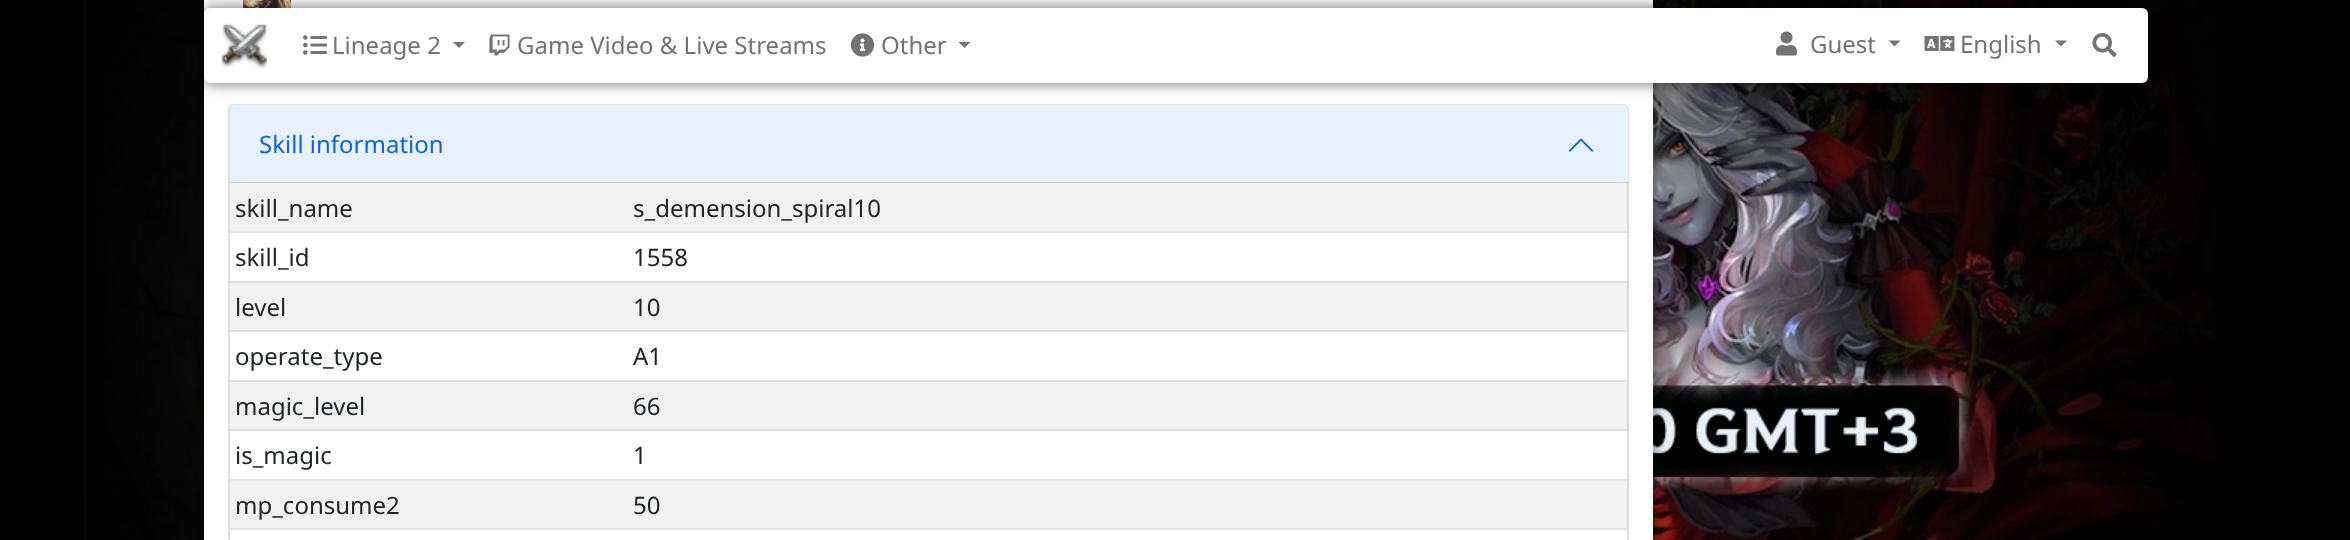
<?xml version="1.0" encoding="UTF-8"?>
<svg xmlns="http://www.w3.org/2000/svg" width="2350" height="540">
    <defs>
        <filter id="blur1" x="-50%" y="-200%" width="200%" height="500%"><feGaussianBlur stdDeviation="7.5"/></filter>
    </defs>
    <rect width="100%" height="100%" fill="#000000"/>
    <image x="84" y="0" width="2136" height="540" href="img_01.png"/>
    <rect x="204" y="-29" width="1449" height="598" rx="6" fill="#000000" fill-opacity="0.6" filter="url(#blur1)"/>
    <rect x="204" y="0" width="1449" height="540" fill="#FFFFFF"/>
    <image x="243" y="0" width="48" height="8" href="img_09.png"/>
    <path d="M 234 105 H 1623 C 1626 105 1628 107 1628 110 V 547 H 229 V 110 C 229 107 231 105 234 105 Z" fill="none" stroke="#DFDFDF" stroke-width="2"/>
    <path d="M 235 105 H 1623 C 1626 105 1628 107 1628 110 V 183 H 230 V 110 C 230 107 232 105 235 105 Z" fill="#E7F1FF"/>
    <rect x="204" y="8" width="1944" height="75" rx="6" fill="#000000" fill-opacity="0.6" filter="url(#blur1)"/>
    <rect x="204" y="8" width="1944" height="75" rx="6" fill="#FFFFFF"/>
    <image x="221" y="23" width="46" height="46" href="img_02.png"/>
    <image x="303" y="35" width="24" height="20" href="img_03.png"/>
    <text x="332" y="54" font-family="Noto Sans" font-size="24" fill="#737373">Lineage 2</text>
    <path d="M 453 42 H 465 L 459 48 Z" fill="#737373"/>
    <image x="489" y="34" width="21" height="22" href="img_04.png"/>
    <text x="517" y="54" font-family="Noto Sans" font-size="24" fill="#737373">Game Video &amp; Live Streams</text>
    <image x="850" y="33" width="25" height="24" href="img_05.png"/>
    <text x="881" y="54" font-family="Noto Sans" font-size="24" fill="#737373">Other</text>
    <path d="M 958.5 42 H 970.5 L 964.5 48 Z" fill="#737373"/>
    <image x="1776" y="31" width="21" height="25" href="img_06.png"/>
    <text x="1810" y="53" font-family="Noto Sans" font-size="24" fill="#737373">Guest</text>
    <path d="M 1888.5 40.5 H 1900.5 L 1894.5 46.5 Z" fill="#737373"/>
    <image x="1924" y="36" width="31" height="15" href="img_07.png"/>
    <text x="1960" y="53" font-family="Noto Sans" font-size="24" fill="#737373">English</text>
    <path d="M 2055 40.5 H 2067 L 2061 46.5 Z" fill="#737373"/>
    <image x="2092" y="33" width="25" height="24" href="img_08.png"/>
    <rect x="230" y="182" width="1398" height="1" fill="#CAD3DF"/>
    <text x="259" y="153" font-family="Noto Sans" font-size="24" fill="#0C63E4">Skill information</text>
    <image x="1568" y="138" width="26" height="14" href="img_10.png"/>
    <rect x="230" y="183" width="397" height="48" fill="#F2F2F2"/>
    <text x="235" y="217" font-family="Noto Sans" font-size="24" fill="#212529">skill_name</text>
    <rect x="627" y="183" width="1001" height="48" fill="#000000" fill-opacity="0.05"/>
    <rect x="230" y="231" width="1398" height="2" fill="#DEE2E6"/>
    <text x="633" y="217" font-family="Noto Sans" font-size="24" fill="#212529">s_demension_spiral10</text>
    <text x="235" y="266" font-family="Noto Sans" font-size="24" fill="#212529">skill_id</text>
    <rect x="230" y="281" width="1398" height="2" fill="#DEE2E6"/>
    <text x="633" y="266" font-family="Noto Sans" font-size="24" fill="#212529">1558</text>
    <rect x="230" y="283" width="397" height="47" fill="#F2F2F2"/>
    <text x="235" y="316" font-family="Noto Sans" font-size="24" fill="#212529">level</text>
    <rect x="627" y="283" width="1001" height="47" fill="#000000" fill-opacity="0.05"/>
    <rect x="230" y="330" width="1398" height="2" fill="#DEE2E6"/>
    <text x="633" y="316" font-family="Noto Sans" font-size="24" fill="#212529">10</text>
    <text x="235" y="365" font-family="Noto Sans" font-size="24" fill="#212529">operate_type</text>
    <rect x="230" y="380" width="1398" height="2" fill="#DEE2E6"/>
    <text x="633" y="365" font-family="Noto Sans" font-size="24" fill="#212529">A1</text>
    <rect x="230" y="382" width="397" height="47" fill="#F2F2F2"/>
    <text x="235" y="415" font-family="Noto Sans" font-size="24" fill="#212529">magic_level</text>
    <rect x="627" y="382" width="1001" height="47" fill="#000000" fill-opacity="0.05"/>
    <rect x="230" y="429" width="1398" height="2" fill="#DEE2E6"/>
    <text x="633" y="415" font-family="Noto Sans" font-size="24" fill="#212529">66</text>
    <text x="235" y="464" font-family="Noto Sans" font-size="24" fill="#212529">is_magic</text>
    <rect x="230" y="479" width="1398" height="2" fill="#DEE2E6"/>
    <text x="633" y="464" font-family="Noto Sans" font-size="24" fill="#212529">1</text>
    <rect x="230" y="481" width="397" height="47" fill="#F2F2F2"/>
    <text x="235" y="514" font-family="Noto Sans" font-size="24" fill="#212529">mp_consume2</text>
    <rect x="627" y="481" width="1001" height="47" fill="#000000" fill-opacity="0.05"/>
    <rect x="230" y="528" width="1398" height="2" fill="#DEE2E6"/>
    <text x="633" y="514" font-family="Noto Sans" font-size="24" fill="#212529">50</text>
</svg>
